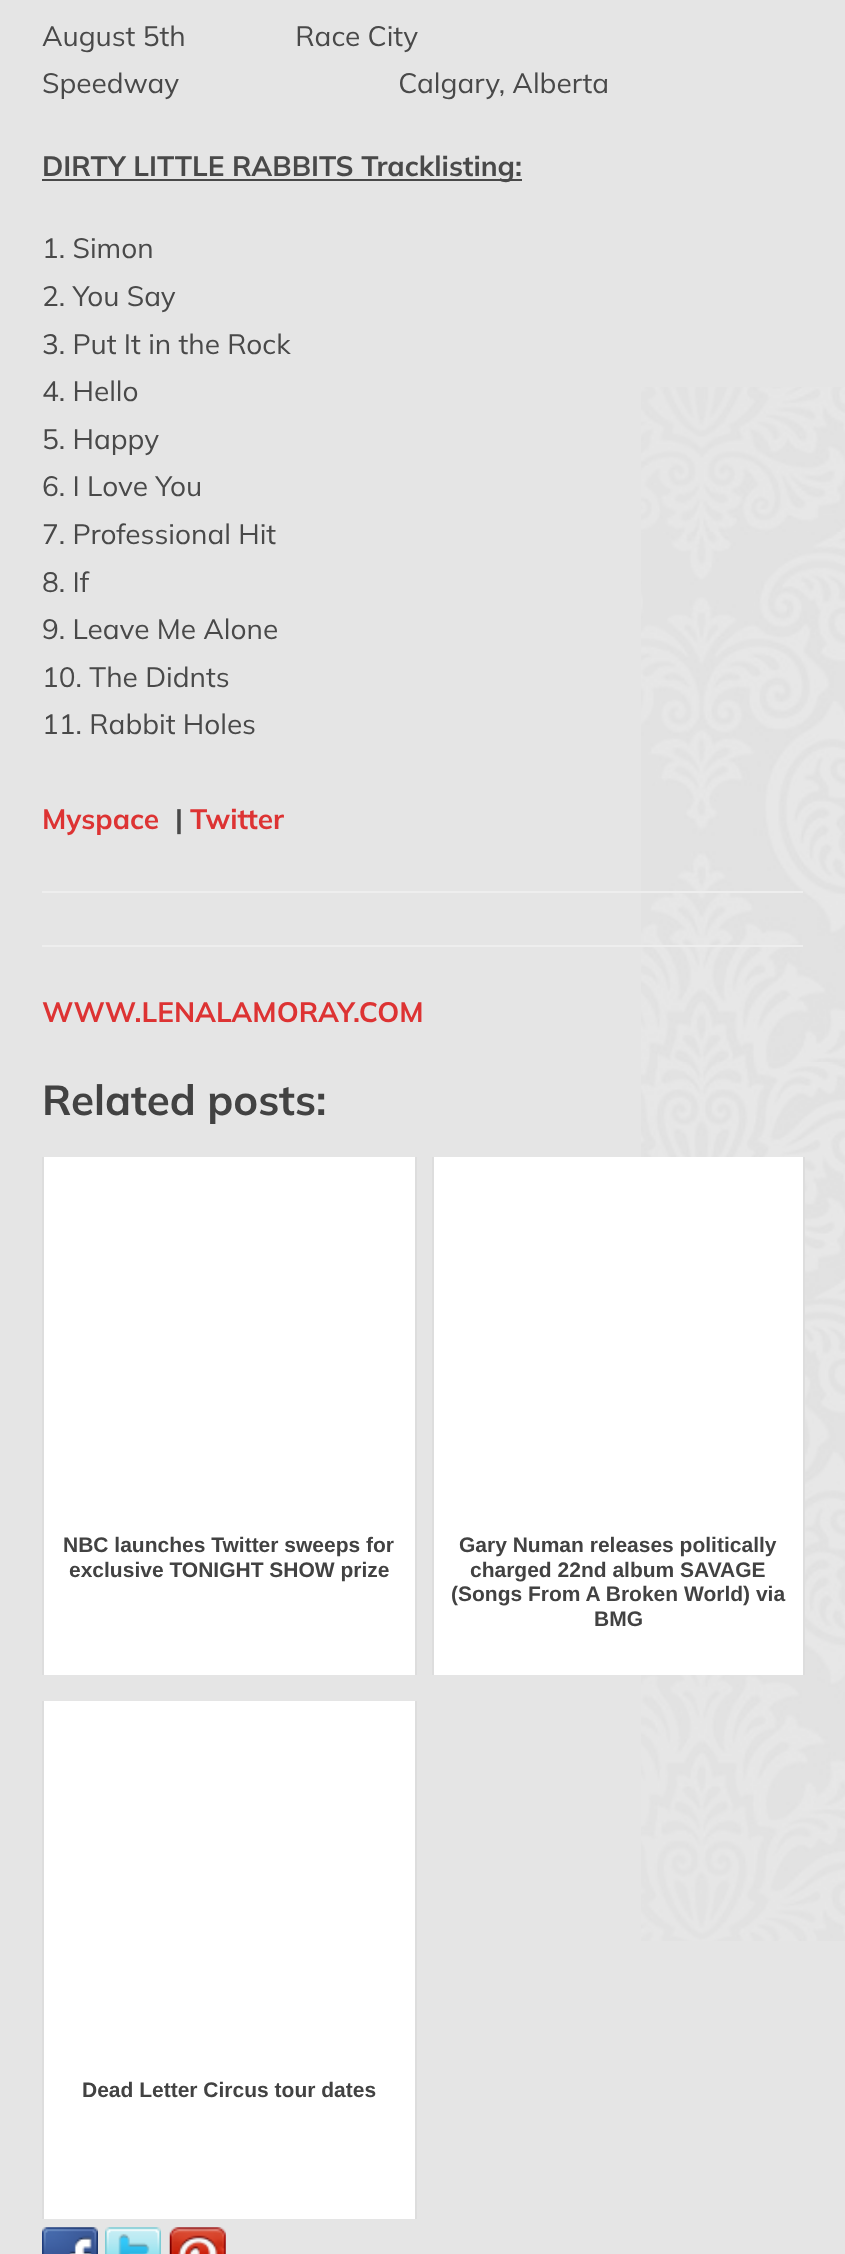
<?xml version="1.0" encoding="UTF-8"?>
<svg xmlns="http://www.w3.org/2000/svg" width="845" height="2254">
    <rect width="100%" height="100%" fill="#E5E5E5"/>
    <image x="641" y="387" width="204" height="1554" href="img_01.png"/>
    <rect x="42" y="945" width="761" height="2" fill="#EEEEEE"/>
    <rect x="42" y="891" width="761" height="2" fill="#EEEEEE"/>
    <text font-family="Mulish" font-size="28" fill="#494949" xml:space="preserve"><tspan x="42" y="46">August 5th               Race City</tspan><tspan x="42" y="93">Speedway                              Calgary, Alberta</tspan></text>
    <rect x="42" y="179" width="480" height="2" fill="#494949"/>
    <text x="42" y="176" font-family="Mulish" font-size="28" font-weight="700" fill="#494949">DIRTY LITTLE RABBITS Tracklisting:</text>
    <text font-family="Mulish" font-size="28" fill="#494949">
        <tspan x="42" y="258">1. Simon</tspan>
        <tspan x="42" y="306">2. You Say</tspan>
        <tspan x="42" y="354">3. Put It in the Rock</tspan>
        <tspan x="42" y="401">4. Hello</tspan>
        <tspan x="42" y="449">5. Happy</tspan>
        <tspan x="42" y="496">6. I Love You</tspan>
        <tspan x="42" y="544">7. Professional Hit</tspan>
        <tspan x="42" y="592">8. If</tspan>
        <tspan x="42" y="639">9. Leave Me Alone</tspan>
        <tspan x="42" y="687">10. The Didnts</tspan>
        <tspan x="42" y="734">11. Rabbit Holes</tspan>
    </text>
    <text x="42" y="829" font-family="Mulish" font-size="28" font-weight="700" fill="#DD3333">Myspace</text>
    <text x="175" y="829" font-family="Mulish" font-size="28" font-weight="700" fill="#494949">|</text>
    <text x="190" y="829" font-family="Mulish" font-size="28" font-weight="700" fill="#DD3333">Twitter</text>
    <text x="42" y="1022" font-family="Mulish" font-size="28" font-weight="700" fill="#DD3333">WWW.LENALAMORAY.COM</text>
    <text x="42" y="1115" font-family="Mulish" font-size="42" font-weight="700" fill="#424242">Related posts:</text>
    <rect x="44" y="1157" width="371" height="518" fill="#FFFFFF"/>
    <rect x="415" y="1157" width="2" height="518" fill="#DDDDDD"/>
    <rect x="42" y="1157" width="2" height="518" fill="#DDDDDD"/>
    <text x="63" y="1552" font-family="Liberation Sans" font-size="21" font-weight="700" fill="#424242">NBC launches Twitter sweeps for</text>
    <text x="69" y="1577" font-family="Liberation Sans" font-size="21" font-weight="700" fill="#424242">exclusive TONIGHT SHOW prize</text>
    <rect x="434" y="1157" width="369" height="518" fill="#FFFFFF"/>
    <rect x="803" y="1157" width="2" height="518" fill="#DDDDDD"/>
    <rect x="432" y="1157" width="2" height="518" fill="#DDDDDD"/>
    <text x="459" y="1552" font-family="Liberation Sans" font-size="21" font-weight="700" fill="#424242">Gary Numan releases politically</text>
    <text x="470" y="1577" font-family="Liberation Sans" font-size="21" font-weight="700" fill="#424242">charged 22nd album SAVAGE</text>
    <text x="451" y="1601" font-family="Liberation Sans" font-size="21" font-weight="700" fill="#424242">(Songs From A Broken World) via</text>
    <text x="594" y="1626" font-family="Liberation Sans" font-size="21" font-weight="700" fill="#424242">BMG</text>
    <rect x="44" y="1701" width="371" height="518" fill="#FFFFFF"/>
    <rect x="415" y="1701" width="2" height="518" fill="#DDDDDD"/>
    <rect x="42" y="1701" width="2" height="518" fill="#DDDDDD"/>
    <text x="82" y="2097" font-family="Liberation Sans" font-size="21" font-weight="700" fill="#424242">Dead Letter Circus tour dates</text>
    <image x="42" y="2227" width="56" height="27" href="img_02.png"/>
    <image x="105" y="2227" width="56" height="27" href="img_03.png"/>
    <image x="169" y="2227" width="57" height="27" href="img_04.png"/>
</svg>
